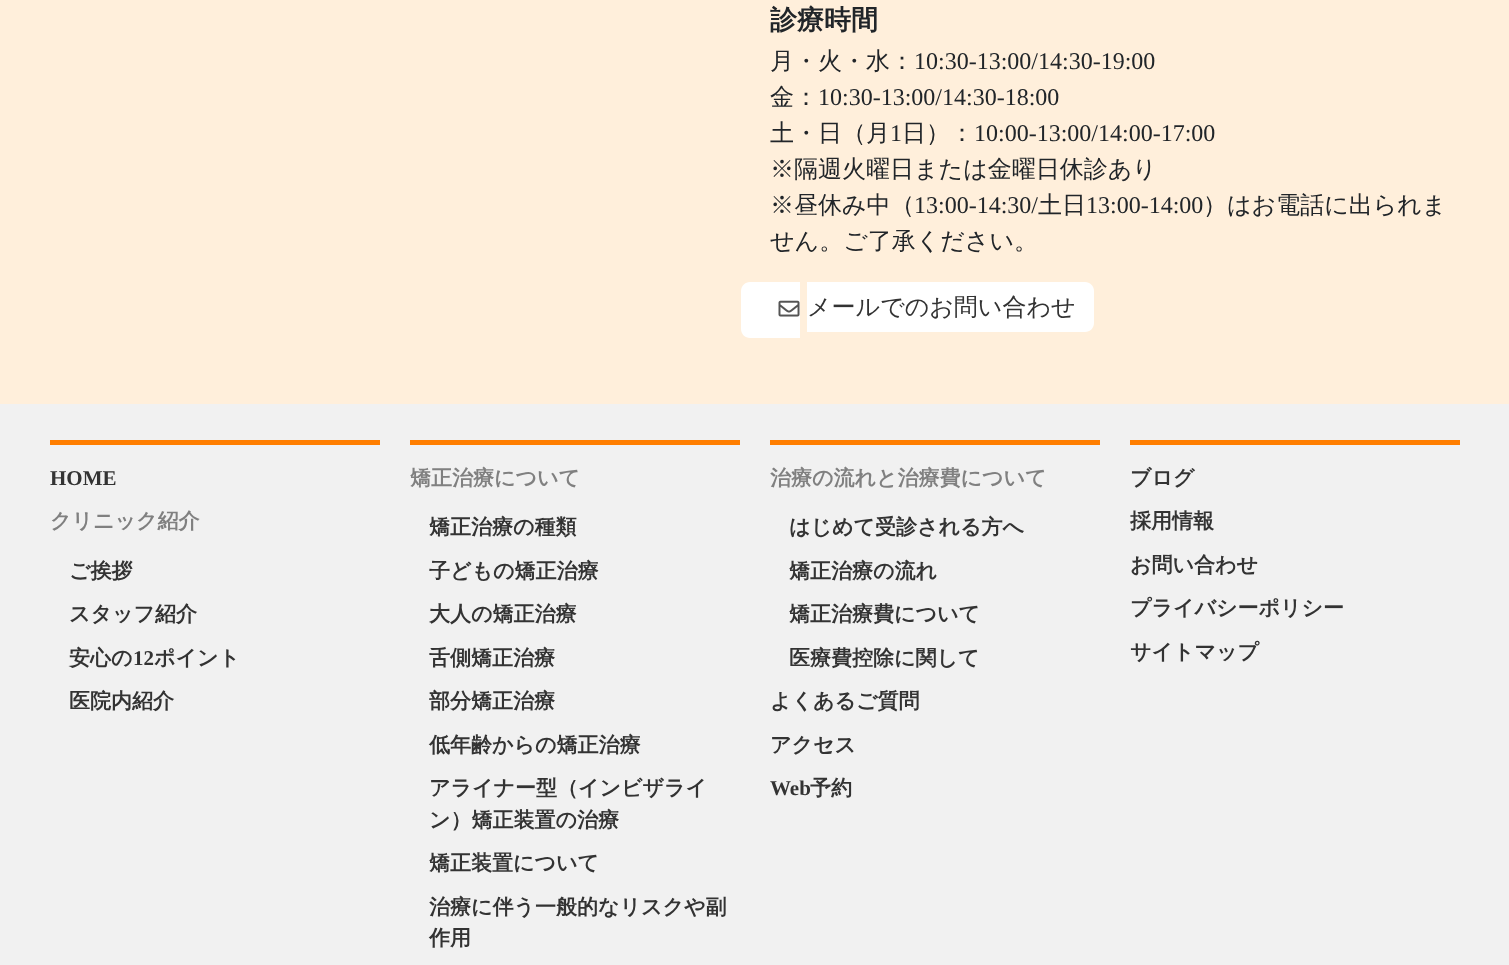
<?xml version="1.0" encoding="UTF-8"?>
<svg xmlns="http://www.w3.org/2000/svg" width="1509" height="965">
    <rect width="100%" height="100%" fill="#FFEFDB"/>
    <text x="770" y="29" font-family="WenQuanYi Zen Hei" font-size="27" font-weight="700" fill="#212529">診療時間</text>
    <text x="770" y="69" font-family="WenQuanYi Zen Hei" font-size="24" font-weight="500" fill="#212529">月・火・水：</text>
    <text x="914" y="69" font-family="Liberation Serif" font-size="24" fill="#212529">10:30-13:00/14:30-19:00</text>
    <text x="770" y="105" font-family="WenQuanYi Zen Hei" font-size="24" font-weight="500" fill="#212529">金：</text>
    <text x="818" y="105" font-family="Liberation Serif" font-size="24" fill="#212529">10:30-13:00/14:30-18:00</text>
    <text x="770" y="141" font-family="WenQuanYi Zen Hei" font-size="24" font-weight="500" fill="#212529">土・日（月</text>
    <text x="890" y="141" font-family="Liberation Serif" font-size="24" fill="#212529">1</text>
    <text x="902" y="141" font-family="WenQuanYi Zen Hei" font-size="24" font-weight="500" fill="#212529">日）：</text>
    <text x="974" y="141" font-family="Liberation Serif" font-size="24" fill="#212529">10:00-13:00/14:00-17:00</text>
    <text font-family="WenQuanYi Zen Hei" font-size="24" font-weight="500" fill="#212529">
        <tspan x="770" y="177">※隔週火曜日または金曜日休診あり</tspan>
        <tspan x="770" y="213">※昼休み中（</tspan>
    </text>
    <text x="914" y="213" font-family="Liberation Serif" font-size="24" fill="#212529">13:00-14:30/</text>
    <text x="1038" y="213" font-family="WenQuanYi Zen Hei" font-size="24" font-weight="500" fill="#212529">土日</text>
    <text x="1086" y="213" font-family="Liberation Serif" font-size="24" fill="#212529">13:00-14:00</text>
    <text x="1203" y="213" font-family="WenQuanYi Zen Hei" font-size="24" font-weight="500" fill="#212529">）はお電話に出られま</text>
    <text x="770" y="249" font-family="WenQuanYi Zen Hei" font-size="24" font-weight="500" fill="#212529">せん。ご了承ください。</text>
    <path d="M 750 282 H 800 V 338 H 750 C 745 338 741 334 741 329 V 291 C 741 286 745 282 750 282 Z" fill="#FFFFFF"/>
    <path d="M 807 282 H 1085 C 1090 282 1094 286 1094 291 V 323 C 1094 328 1090 332 1085 332 H 807 Z" fill="#FFFFFF"/>
    <image x="778" y="300" width="22" height="17" href="img_01.png"/>
    <text x="807" y="315" font-family="WenQuanYi Zen Hei" font-size="24" font-weight="500" fill="#333333">メールでのお問い合わせ</text>
    <rect x="0" y="404" width="1509" height="561" fill="#F1F1F1"/>
    <rect x="50" y="440" width="330" height="5" fill="#FF7E00"/>
    <text x="50" y="485" font-family="Liberation Serif" font-size="21" font-weight="700" fill="#333333">HOME</text>
    <text x="50" y="528" font-family="WenQuanYi Zen Hei" font-size="21" font-weight="700" fill="#808080">クリニック紹介</text>
    <text x="69" y="578" font-family="WenQuanYi Zen Hei" font-size="21" font-weight="700" fill="#333333">ご挨拶</text>
    <text x="69" y="621" font-family="WenQuanYi Zen Hei" font-size="21" font-weight="700" fill="#333333">スタッフ紹介</text>
    <text x="69" y="665" font-family="WenQuanYi Zen Hei" font-size="21" font-weight="700" fill="#333333">安心の</text>
    <text x="133" y="665" font-family="Liberation Serif" font-size="21" font-weight="700" fill="#333333">12</text>
    <text x="154" y="665" font-family="WenQuanYi Zen Hei" font-size="21" font-weight="700" fill="#333333">ポイント</text>
    <text x="69" y="708" font-family="WenQuanYi Zen Hei" font-size="21" font-weight="700" fill="#333333">医院内紹介</text>
    <rect x="410" y="440" width="330" height="5" fill="#FF7E00"/>
    <text x="410" y="485" font-family="WenQuanYi Zen Hei" font-size="21" font-weight="700" fill="#808080">矯正治療について</text>
    <text x="429" y="534" font-family="WenQuanYi Zen Hei" font-size="21" font-weight="700" fill="#333333">矯正治療の種類</text>
    <text x="429" y="578" font-family="WenQuanYi Zen Hei" font-size="21" font-weight="700" fill="#333333">子どもの矯正治療</text>
    <text x="429" y="621" font-family="WenQuanYi Zen Hei" font-size="21" font-weight="700" fill="#333333">大人の矯正治療</text>
    <text x="429" y="665" font-family="WenQuanYi Zen Hei" font-size="21" font-weight="700" fill="#333333">舌側矯正治療</text>
    <text x="429" y="708" font-family="WenQuanYi Zen Hei" font-size="21" font-weight="700" fill="#333333">部分矯正治療</text>
    <text x="429" y="752" font-family="WenQuanYi Zen Hei" font-size="21" font-weight="700" fill="#333333">低年齢からの矯正治療</text>
    <text font-family="WenQuanYi Zen Hei" font-size="21" font-weight="700" fill="#333333">
        <tspan x="429" y="795">アライナー型（インビザライ</tspan>
        <tspan x="429" y="827">ン）矯正装置の治療</tspan>
    </text>
    <text x="429" y="870" font-family="WenQuanYi Zen Hei" font-size="21" font-weight="700" fill="#333333">矯正装置について</text>
    <text font-family="WenQuanYi Zen Hei" font-size="21" font-weight="700" fill="#333333">
        <tspan x="429" y="914">治療に伴う一般的なリスクや副</tspan>
        <tspan x="429" y="945">作用</tspan>
    </text>
    <rect x="770" y="440" width="330" height="5" fill="#FF7E00"/>
    <text x="770" y="485" font-family="WenQuanYi Zen Hei" font-size="21" font-weight="700" fill="#808080">治療の流れと治療費について</text>
    <text x="789" y="534" font-family="WenQuanYi Zen Hei" font-size="21" font-weight="700" fill="#333333">はじめて受診される方へ</text>
    <text x="789" y="578" font-family="WenQuanYi Zen Hei" font-size="21" font-weight="700" fill="#333333">矯正治療の流れ</text>
    <text x="789" y="621" font-family="WenQuanYi Zen Hei" font-size="21" font-weight="700" fill="#333333">矯正治療費について</text>
    <text x="789" y="665" font-family="WenQuanYi Zen Hei" font-size="21" font-weight="700" fill="#333333">医療費控除に関して</text>
    <text x="770" y="708" font-family="WenQuanYi Zen Hei" font-size="21" font-weight="700" fill="#333333">よくあるご質問</text>
    <text x="770" y="752" font-family="WenQuanYi Zen Hei" font-size="21" font-weight="700" fill="#333333">アクセス</text>
    <text x="770" y="795" font-family="Liberation Serif" font-size="21" font-weight="700" fill="#333333">Web</text>
    <text x="810" y="795" font-family="WenQuanYi Zen Hei" font-size="21" font-weight="700" fill="#333333">予約</text>
    <rect x="1130" y="440" width="330" height="5" fill="#FF7E00"/>
    <text x="1130" y="485" font-family="WenQuanYi Zen Hei" font-size="21" font-weight="700" fill="#333333">ブログ</text>
    <text x="1130" y="528" font-family="WenQuanYi Zen Hei" font-size="21" font-weight="700" fill="#333333">採用情報</text>
    <text x="1130" y="572" font-family="WenQuanYi Zen Hei" font-size="21" font-weight="700" fill="#333333">お問い合わせ</text>
    <text x="1130" y="615" font-family="WenQuanYi Zen Hei" font-size="21" font-weight="700" fill="#333333">プライバシーポリシー</text>
    <text x="1130" y="659" font-family="WenQuanYi Zen Hei" font-size="21" font-weight="700" fill="#333333">サイトマップ</text>
</svg>
